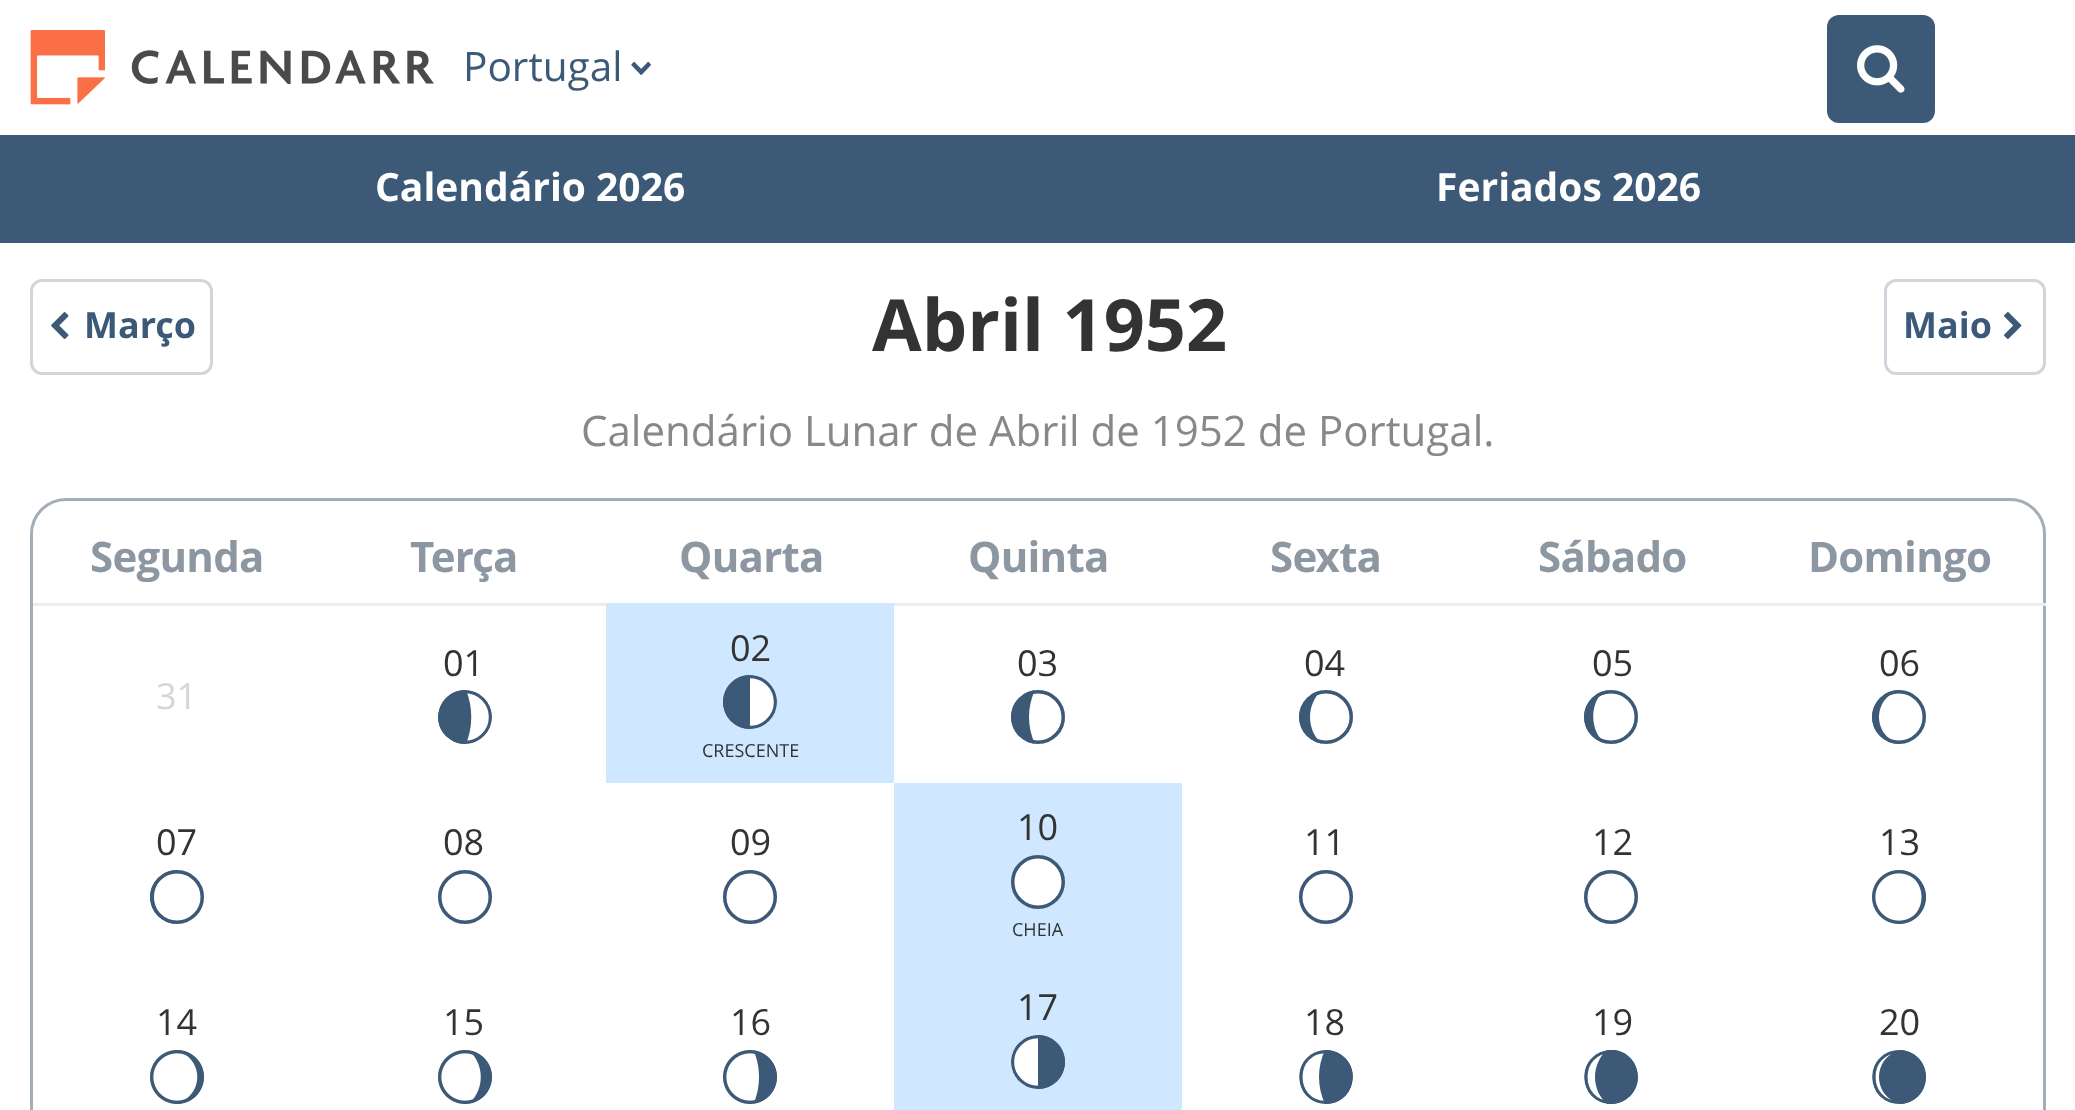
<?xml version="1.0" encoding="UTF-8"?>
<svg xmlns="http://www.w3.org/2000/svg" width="2075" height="1110">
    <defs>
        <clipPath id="clip1"><rect x="438" y="690" width="54" height="54" rx="27"/></clipPath>
        <clipPath id="clip2"><rect x="723" y="675" width="54" height="54" rx="27"/></clipPath>
        <clipPath id="clip3"><rect x="1011" y="690" width="54" height="54" rx="27"/></clipPath>
        <clipPath id="clip4"><rect x="1011" y="690" width="54" height="54"/></clipPath>
        <clipPath id="clip5"><rect x="1299" y="690" width="54" height="54" rx="27"/></clipPath>
        <clipPath id="clip6"><rect x="1299" y="690" width="54" height="54"/></clipPath>
        <clipPath id="clip7"><rect x="1584" y="690" width="54" height="54" rx="27"/></clipPath>
        <clipPath id="clip8"><rect x="1872" y="690" width="54" height="54" rx="27"/></clipPath>
        <clipPath id="clip9"><rect x="150" y="870" width="54" height="54" rx="27"/></clipPath>
        <clipPath id="clip10"><rect x="438" y="870" width="54" height="54" rx="27"/></clipPath>
        <clipPath id="clip11"><rect x="723" y="870" width="54" height="54" rx="27"/></clipPath>
        <clipPath id="clip12"><rect x="1011" y="855" width="54" height="54" rx="27"/></clipPath>
        <clipPath id="clip13"><rect x="1299" y="870" width="54" height="54" rx="27"/></clipPath>
        <clipPath id="clip14"><rect x="1584" y="870" width="54" height="54" rx="27"/></clipPath>
        <clipPath id="clip15"><rect x="1011" y="1035" width="54" height="54" rx="27"/></clipPath>
        <clipPath id="clip16"><path d="M 1326 1104 C 1311 1104 1299 1092 1299 1077 C 1299 1062 1311 1050 1326 1050 C 1341 1050 1353 1062 1353 1077 C 1353 1092 1341 1104 1326 1104 Z"/></clipPath>
        <clipPath id="clip17"><path d="M 1611 1104 C 1596 1104 1584 1092 1584 1077 C 1584 1062 1596 1050 1611 1050 C 1626 1050 1638 1062 1638 1077 C 1638 1092 1626 1104 1611 1104 Z"/></clipPath>
        <clipPath id="clip18"><rect x="1584" y="1050" width="54" height="54"/></clipPath>
        <clipPath id="clip19"><path d="M 1899 1104 C 1884 1104 1872 1092 1872 1077 C 1872 1062 1884 1050 1899 1050 C 1914 1050 1926 1062 1926 1077 C 1926 1092 1914 1104 1899 1104 Z"/></clipPath>
    </defs>
    <rect width="100%" height="100%" fill="#FFFFFF"/>
    <image x="30" y="30" width="404" height="75" href="img_01.png"/>
    <text x="463" y="81" font-family="Open Sans" font-size="40.5" fill="#3C5A77">Portugal</text>
    <image x="631" y="61" width="20" height="14" href="img_02.png"/>
    <rect x="1827" y="15" width="108" height="108" rx="12" fill="#3C5A77"/>
    <image x="1857" y="45" width="48" height="48" href="img_03.png"/>
    <rect x="0" y="135" width="2075" height="108" fill="#3C5A77"/>
    <text x="375" y="201" font-family="Open Sans" font-size="39" font-weight="700" fill="#FFFFFF">Calendário 2026</text>
    <text x="1436" y="201" font-family="Open Sans" font-size="39" font-weight="700" fill="#FFFFFF">Feriados 2026</text>
    <rect x="31.5" y="280.5" width="180" height="93" rx="10.5" fill="none" stroke="#D1D6DC" stroke-width="3"/>
    <image x="51" y="312" width="18" height="27" href="img_04.png"/>
    <text x="84" y="338" font-family="Open Sans" font-size="36" font-weight="700" fill="#3C5A77">Março</text>
    <text x="872" y="351" font-family="Open Sans" font-size="72" font-weight="700" fill="#333333">Abril 1952</text>
    <rect x="1885.5" y="280.5" width="159" height="93" rx="10.5" fill="none" stroke="#D1D6DC" stroke-width="3"/>
    <text x="1903" y="338" font-family="Open Sans" font-size="36" font-weight="700" fill="#3C5A77">Maio</text>
    <image x="2004" y="312" width="18" height="27" href="img_05.png"/>
    <text x="581" y="446" font-family="Open Sans" font-size="42" fill="#888888">Calendário Lunar de Abril de 1952 de Portugal.</text>
    <rect x="31.5" y="499.5" width="2013" height="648" rx="34.5" fill="none" stroke="#A3AEB9" stroke-width="3"/>
    <rect x="33" y="603" width="2013" height="3" fill="#ECECEC"/>
    <text x="90" y="572" font-family="Open Sans" font-size="42" font-weight="700" letter-spacing="-0.75" fill="#8C97A1">Segunda</text>
    <text x="410" y="572" font-family="Open Sans" font-size="42" font-weight="700" letter-spacing="-0.75" fill="#8C97A1">Terça</text>
    <text x="679" y="572" font-family="Open Sans" font-size="42" font-weight="700" letter-spacing="-0.75" fill="#8C97A1">Quarta</text>
    <text x="968" y="572" font-family="Open Sans" font-size="42" font-weight="700" letter-spacing="-0.75" fill="#8C97A1">Quinta</text>
    <text x="1270" y="572" font-family="Open Sans" font-size="42" font-weight="700" letter-spacing="-0.75" fill="#8C97A1">Sexta</text>
    <text x="1538" y="572" font-family="Open Sans" font-size="42" font-weight="700" letter-spacing="-0.75" fill="#8C97A1">Sábado</text>
    <text x="1808" y="572" font-family="Open Sans" font-size="42" font-weight="700" letter-spacing="-0.75" fill="#8C97A1">Domingo</text>
    <text x="443" y="676" font-family="Open Sans" font-size="36" fill="#333333">01</text>
    <g clip-path="url(#clip1)">
        <circle cx="465" cy="717" r="25.5" fill="none" stroke="#3C5A77" stroke-width="3.4"/>
    </g>
    <path d="M 465 690 H 466 C 473 707 473 727 466 744 C 460 744 455 743 450 739 C 428 725 439 690 465 690 Z" fill="#3C5A77"/>
    <rect x="606" y="603" width="288" height="180" fill="#D0E8FF"/>
    <text x="730" y="661" font-family="Open Sans" font-size="36" fill="#333333">02</text>
    <circle cx="750" cy="702" r="25.5" fill="#FFFFFF"/>
    <g clip-path="url(#clip2)">
        <circle cx="750" cy="702" r="25.5" fill="none" stroke="#3C5A77" stroke-width="3.4"/>
    </g>
    <path d="M 750 675 V 729 C 735 729 723 717 723 702 C 723 687 735 675 750 675 Z" fill="#3C5A77"/>
    <text x="702" y="757" font-family="Open Sans" font-size="18" fill="#333333">CRESCENTE</text>
    <text x="1017" y="676" font-family="Open Sans" font-size="36" fill="#333333">03</text>
    <circle cx="1038" cy="717" r="25.5" fill="#3C5A77"/>
    <g clip-path="url(#clip3)">
        <circle cx="1038" cy="717" r="25.5" fill="none" stroke="#3C5A77" stroke-width="3.4"/>
    </g>
    <g clip-path="url(#clip4)">
        <path d="M 1038 690 C 1043 690 1049 692 1053 695 C 1077 710 1062 747 1035 744 C 1027 727 1027 707 1035 690 Z" fill="#FFFFFF"/>
    </g>
    <circle cx="1038" cy="717" r="25.25" fill="none" stroke="#3C5A77" stroke-width="3.5"/>
    <text x="1304" y="676" font-family="Open Sans" font-size="36" fill="#333333">04</text>
    <circle cx="1326" cy="717" r="25.5" fill="#3C5A77"/>
    <g clip-path="url(#clip5)">
        <circle cx="1326" cy="717" r="25.5" fill="none" stroke="#3C5A77" stroke-width="3.4"/>
    </g>
    <g clip-path="url(#clip6)">
        <path d="M 1326 690 C 1331 690 1337 692 1341 695 C 1365 711 1350 748 1322 744 C 1306 730 1306 704 1322 690 Z" fill="#FFFFFF"/>
    </g>
    <circle cx="1326" cy="717" r="25.25" fill="none" stroke="#3C5A77" stroke-width="3.5"/>
    <text x="1592" y="676" font-family="Open Sans" font-size="36" fill="#333333">05</text>
    <circle cx="1611" cy="717" r="25.5" fill="#3C5A77"/>
    <g clip-path="url(#clip7)">
        <circle cx="1611" cy="717" r="25.5" fill="none" stroke="#3C5A77" stroke-width="3.4"/>
    </g>
    <path d="M 1611 690 C 1645 690 1649 741 1611 744 C 1605 744 1603 743 1600 738 C 1590 724 1591 702 1604 691 Z" fill="#FFFFFF"/>
    <circle cx="1611" cy="717" r="25.25" fill="none" stroke="#3C5A77" stroke-width="3.5"/>
    <text x="1879" y="676" font-family="Open Sans" font-size="36" fill="#333333">06</text>
    <circle cx="1899" cy="717" r="25.5" fill="#3C5A77"/>
    <g clip-path="url(#clip8)">
        <circle cx="1899" cy="717" r="25.5" fill="none" stroke="#3C5A77" stroke-width="3.4"/>
    </g>
    <path d="M 1902 690 C 1916 692 1926 703 1926 717 C 1926 731 1916 742 1902 744 C 1889 742 1879 731 1879 717 C 1879 703 1889 692 1902 690 Z" fill="#FFFFFF"/>
    <circle cx="1899" cy="717" r="25.25" fill="none" stroke="#3C5A77" stroke-width="3.5"/>
    <text x="156" y="709" font-family="Open Sans" font-size="36" fill="#D5D6DB">31</text>
    <text x="156" y="855" font-family="Open Sans" font-size="36" fill="#333333">07</text>
    <circle cx="177" cy="897" r="25.5" fill="#3C5A77"/>
    <g clip-path="url(#clip9)">
        <circle cx="177" cy="897" r="25.5" fill="none" stroke="#3C5A77" stroke-width="3.4"/>
    </g>
    <path d="M 179 870 C 193 871 204 883 204 897 C 204 911 193 923 179 924 C 165 923 154 911 154 897 C 154 883 165 871 179 870 Z" fill="#FFFFFF"/>
    <circle cx="177" cy="897" r="25.25" fill="none" stroke="#3C5A77" stroke-width="3.5"/>
    <text x="443" y="855" font-family="Open Sans" font-size="36" fill="#333333">08</text>
    <g clip-path="url(#clip10)">
        <circle cx="465" cy="897" r="25.5" fill="none" stroke="#3C5A77" stroke-width="3.4"/>
    </g>
    <circle cx="465" cy="897" r="27" fill="#FFFFFF"/>
    <circle cx="465" cy="897" r="25.25" fill="none" stroke="#3C5A77" stroke-width="3.5"/>
    <text x="730" y="855" font-family="Open Sans" font-size="36" fill="#333333">09</text>
    <g clip-path="url(#clip11)">
        <circle cx="750" cy="897" r="25.5" fill="none" stroke="#3C5A77" stroke-width="3.4"/>
    </g>
    <circle cx="750" cy="897" r="27" fill="#FFFFFF"/>
    <circle cx="750" cy="897" r="25.25" fill="none" stroke="#3C5A77" stroke-width="3.5"/>
    <rect x="894" y="783" width="288" height="327" fill="#D0E8FF"/>
    <text x="1017" y="840" font-family="Open Sans" font-size="36" fill="#333333">10</text>
    <g clip-path="url(#clip12)">
        <circle cx="1038" cy="882" r="25.5" fill="none" stroke="#3C5A77" stroke-width="3.4"/>
    </g>
    <circle cx="1038" cy="882" r="27" fill="#FFFFFF"/>
    <circle cx="1038" cy="882" r="25.25" fill="none" stroke="#3C5A77" stroke-width="3.5"/>
    <text x="1012" y="936" font-family="Open Sans" font-size="18" fill="#333333">CHEIA</text>
    <text x="1304" y="855" font-family="Open Sans" font-size="36" fill="#333333">11</text>
    <g clip-path="url(#clip13)">
        <circle cx="1326" cy="897" r="25.5" fill="none" stroke="#3C5A77" stroke-width="3.4"/>
    </g>
    <circle cx="1326" cy="897" r="27" fill="#FFFFFF"/>
    <circle cx="1326" cy="897" r="25.25" fill="none" stroke="#3C5A77" stroke-width="3.5"/>
    <text x="1592" y="855" font-family="Open Sans" font-size="36" fill="#333333">12</text>
    <g clip-path="url(#clip14)">
        <circle cx="1611" cy="897" r="25.5" fill="none" stroke="#3C5A77" stroke-width="3.4"/>
    </g>
    <circle cx="1611" cy="897" r="27" fill="#FFFFFF"/>
    <circle cx="1611" cy="897" r="25.25" fill="none" stroke="#3C5A77" stroke-width="3.5"/>
    <text x="1879" y="855" font-family="Open Sans" font-size="36" fill="#333333">13</text>
    <image x="1872" y="870" width="54" height="54" href="img_06.png"/>
    <text x="156" y="1035" font-family="Open Sans" font-size="36" fill="#333333">14</text>
    <image x="150" y="1050" width="54" height="54" href="img_07.png"/>
    <text x="443" y="1035" font-family="Open Sans" font-size="36" fill="#333333">15</text>
    <image x="438" y="1050" width="54" height="54" href="img_08.png"/>
    <text x="730" y="1035" font-family="Open Sans" font-size="36" fill="#333333">16</text>
    <image x="723" y="1050" width="54" height="54" href="img_09.png"/>
    <text x="1017" y="1020" font-family="Open Sans" font-size="36" fill="#333333">17</text>
    <circle cx="1038" cy="1062" r="25.5" fill="#FFFFFF"/>
    <g clip-path="url(#clip15)">
        <circle cx="1038" cy="1062" r="25.5" fill="none" stroke="#3C5A77" stroke-width="3.4"/>
    </g>
    <path d="M 1038 1035 C 1053 1035 1065 1047 1065 1062 C 1065 1077 1053 1089 1038 1089 Z" fill="#3C5A77"/>
    <text x="1304" y="1035" font-family="Open Sans" font-size="36" fill="#333333">18</text>
    <g clip-path="url(#clip16)">
        <path d="M 1326 1102.5 C 1292.5 1102.5 1292.5 1051.5 1326 1051.5 C 1359.5 1051.5 1359.5 1102.5 1326 1102.5 Z" fill="none" stroke="#3C5A77" stroke-width="3.4"/>
    </g>
    <path d="M 1326 1104 H 1325 C 1317 1087 1317 1067 1325 1050 C 1330 1050 1336 1051 1341 1055 C 1363 1069 1352 1104 1326 1104 Z" fill="#3C5A77"/>
    <text x="1592" y="1035" font-family="Open Sans" font-size="36" fill="#333333">19</text>
    <g clip-path="url(#clip17)">
        <path d="M 1611 1102.5 C 1577.5 1102.5 1577.5 1051.5 1611 1051.5 C 1644.5 1051.5 1644.5 1102.5 1611 1102.5 Z" fill="none" stroke="#3C5A77" stroke-width="3.4"/>
    </g>
    <g clip-path="url(#clip18)">
        <path d="M 1611 1104 H 1607 C 1591 1090 1591 1064 1607 1050 C 1635 1046 1650 1083 1626 1099 C 1622 1102 1616 1104 1611 1104 Z" fill="#3C5A77"/>
    </g>
    <text x="1879" y="1035" font-family="Open Sans" font-size="36" fill="#333333">20</text>
    <g clip-path="url(#clip19)">
        <path d="M 1899 1102.5 C 1865.5 1102.5 1865.5 1051.5 1899 1051.5 C 1932.5 1051.5 1932.5 1102.5 1899 1102.5 Z" fill="none" stroke="#3C5A77" stroke-width="3.4"/>
    </g>
    <path d="M 1902 1104 C 1889 1102 1879 1091 1879 1077 C 1879 1063 1889 1052 1902 1050 C 1916 1052 1926 1063 1926 1077 C 1926 1091 1916 1102 1902 1104 Z" fill="#3C5A77"/>
</svg>
